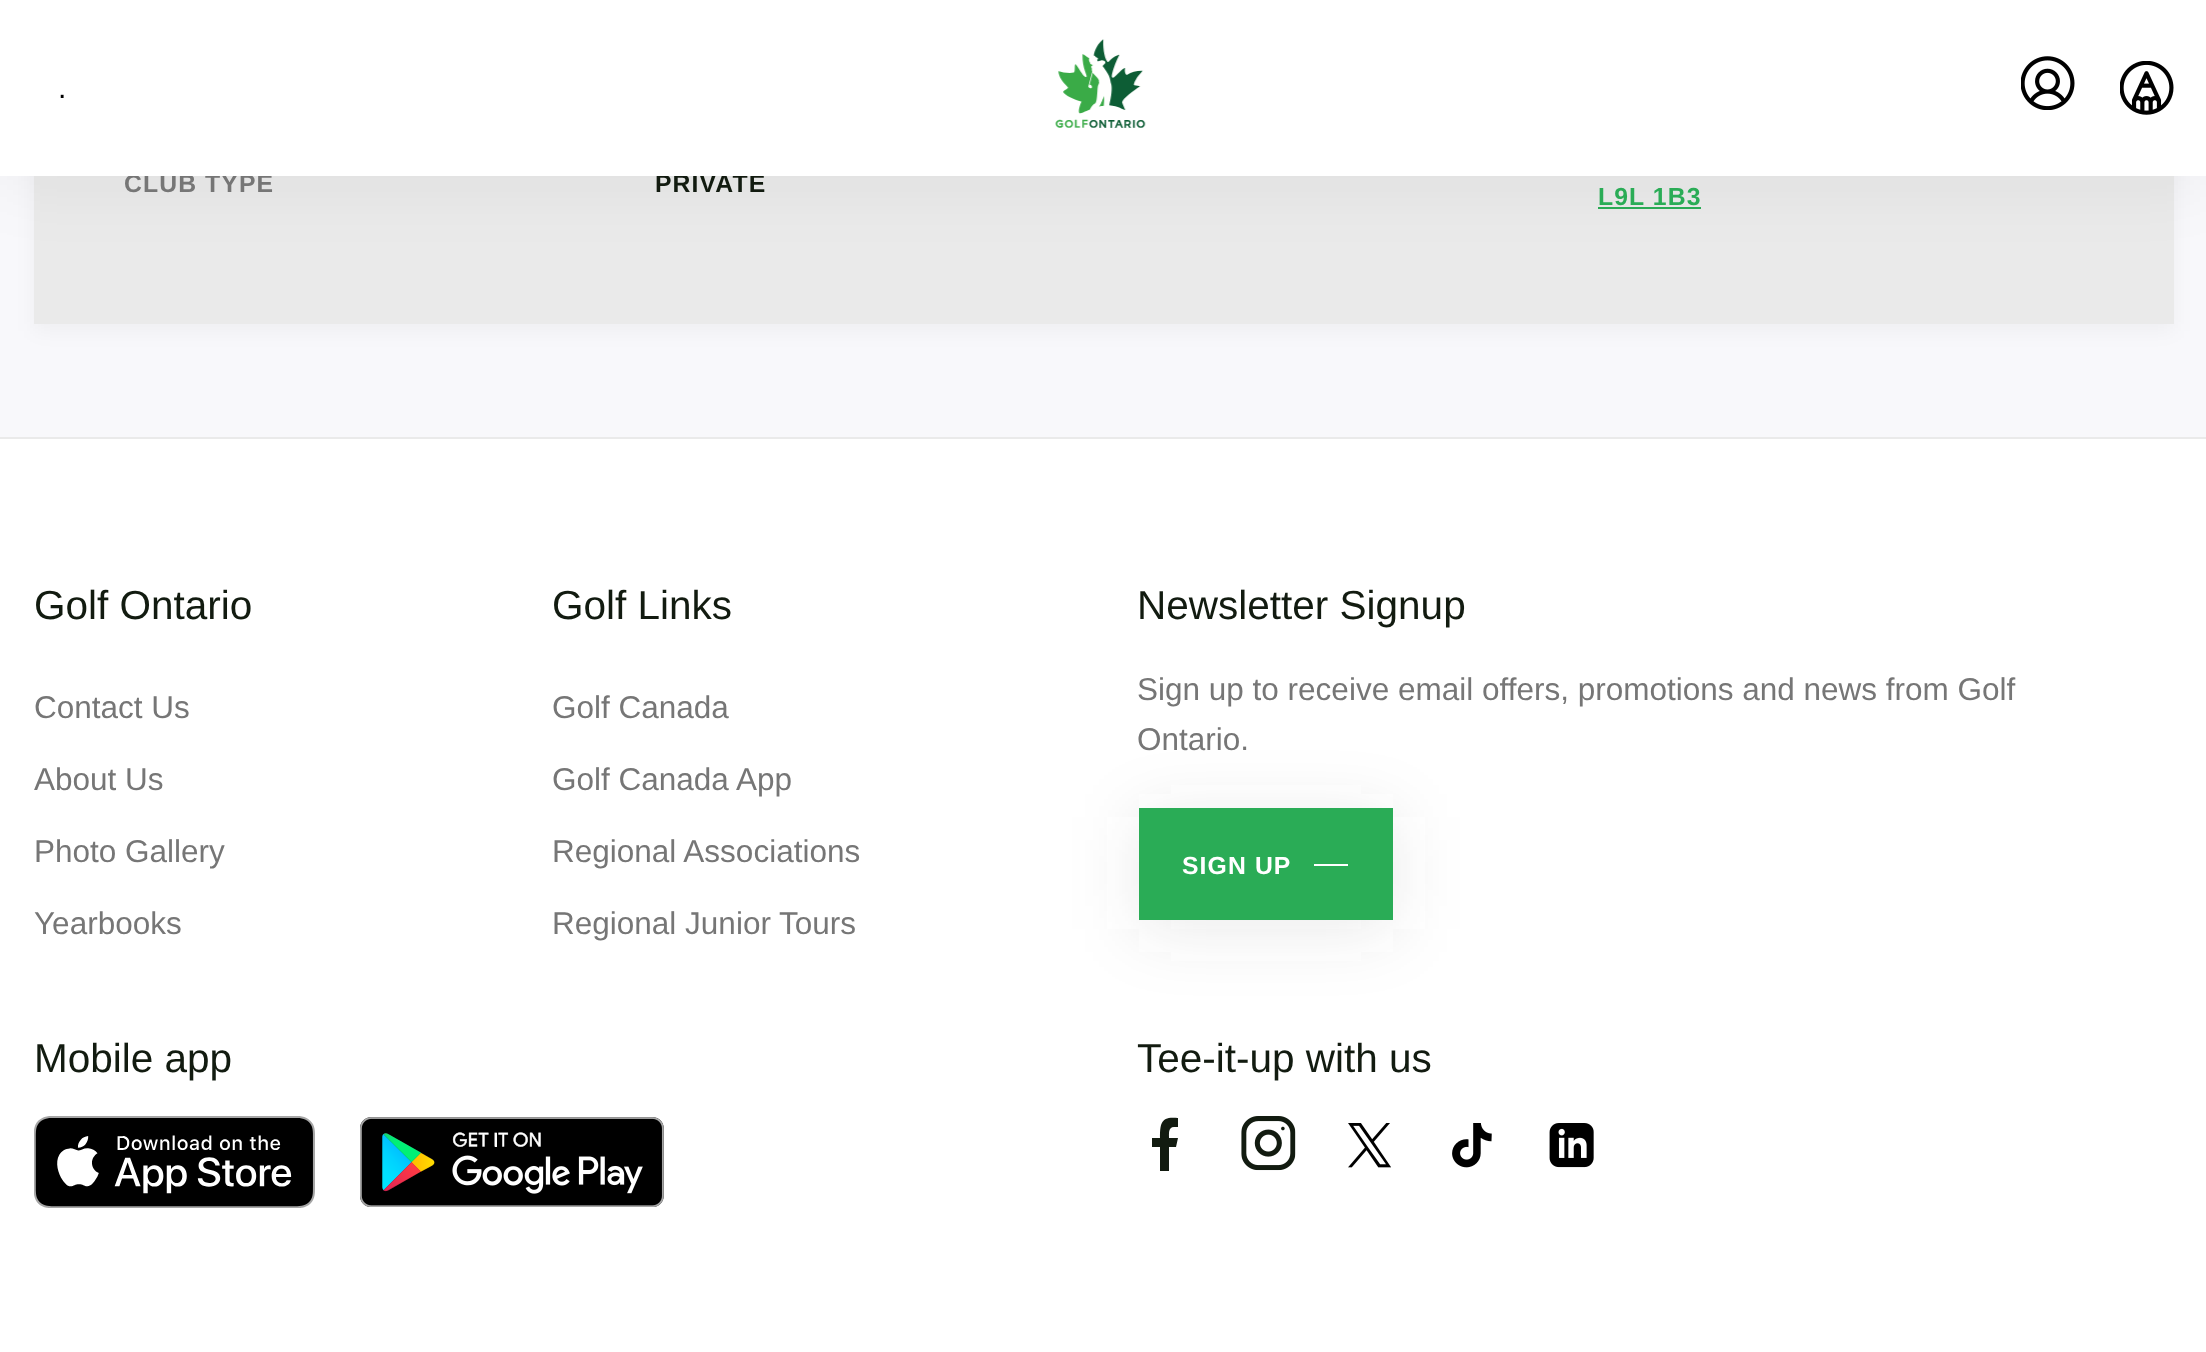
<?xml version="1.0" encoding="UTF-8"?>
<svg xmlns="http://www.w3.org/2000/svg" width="2206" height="1352">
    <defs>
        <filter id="blur1" x="-50%" y="-200%" width="200%" height="500%"><feGaussianBlur stdDeviation="10"/></filter>
        <filter id="blur2" x="-50%" y="-200%" width="200%" height="500%"><feGaussianBlur stdDeviation="34"/></filter>
    </defs>
    <rect width="100%" height="100%" fill="#F8F8FB"/>
    <rect x="34" y="-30" width="2140" height="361" fill="#000000" fill-opacity="0.04" filter="url(#blur1)"/>
    <rect x="34" y="176" width="2140" height="148" fill="#EAEAEA"/>
    <rect x="1598" y="207" width="103" height="2" fill="#2AAC56"/>
    <rect x="0" y="9" width="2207" height="176" fill="#000000" fill-opacity="0.05" filter="url(#blur2)"/>
    <text x="124" y="192" font-family="Liberation Sans" font-size="24.75" font-weight="700" letter-spacing="1.1" fill="#767676">CLUB TYPE</text>
    <text x="655" y="192" font-family="Liberation Sans" font-size="24.75" font-weight="700" letter-spacing="1.1" fill="#121B10">PRIVATE</text>
    <rect x="0" y="0" width="2206" height="176" fill="#FFFFFF"/>
    <text x="58" y="98" font-family="Liberation Sans" font-size="30" fill="#000000">.</text>
    <image x="1055" y="39" width="91" height="89" href="img_01.png"/>
    <image x="2021" y="56" width="54" height="54" href="img_02.png"/>
    <image x="2120" y="61" width="54" height="54" href="img_03.png"/>
    <text x="1598" y="205" font-family="Liberation Sans" font-size="24.75" font-weight="700" letter-spacing="1.1" fill="#2AAC56">L9L 1B3</text>
    <rect x="0" y="439" width="2206" height="913" fill="#FFFFFF"/>
    <rect x="0" y="437" width="2206" height="2" fill="#EAEAEA"/>
    <text x="34" y="619" font-family="Liberation Sans" font-size="40.5" fill="#121B10">Golf Ontario</text>
    <text x="34" y="718" font-family="Liberation Sans" font-size="31.5" fill="#767676">Contact Us</text>
    <text x="34" y="790" font-family="Liberation Sans" font-size="31.5" fill="#767676">About Us</text>
    <text x="34" y="862" font-family="Liberation Sans" font-size="31.5" fill="#767676">Photo Gallery</text>
    <text x="34" y="934" font-family="Liberation Sans" font-size="31.5" fill="#767676">Yearbooks</text>
    <text x="552" y="619" font-family="Liberation Sans" font-size="40.5" fill="#121B10">Golf Links</text>
    <text x="552" y="718" font-family="Liberation Sans" font-size="31.5" fill="#767676">Golf Canada</text>
    <text x="552" y="790" font-family="Liberation Sans" font-size="31.5" fill="#767676">Golf Canada App</text>
    <text x="552" y="862" font-family="Liberation Sans" font-size="31.5" fill="#767676">Regional Associations</text>
    <text x="552" y="934" font-family="Liberation Sans" font-size="31.5" fill="#767676">Regional Junior Tours</text>
    <text x="1137" y="619" font-family="Liberation Sans" font-size="40.5" fill="#121B10">Newsletter Signup</text>
    <text font-family="Liberation Sans" font-size="31.5" fill="#767676">
        <tspan x="1137" y="700">Sign up to receive email offers, promotions and news from Golf</tspan>
        <tspan x="1137" y="750">Ontario.</tspan>
    </text>
    <rect x="1139" y="817" width="254" height="112" fill="#5A5A5A" fill-opacity="0.12" filter="url(#blur2)"/>
    <rect x="1139" y="808" width="254" height="112" fill="#2AAC56"/>
    <text x="1182" y="874" font-family="Liberation Sans" font-size="24.75" font-weight="700" letter-spacing="1.1" fill="#FFFFFF">SIGN UP</text>
    <rect x="1314" y="864" width="34" height="2" fill="#FFFFFF"/>
    <text x="34" y="1072" font-family="Liberation Sans" font-size="40.5" fill="#121B10">Mobile app</text>
    <image x="34" y="1116" width="281" height="92" href="img_04.png"/>
    <image x="360" y="1117" width="304" height="90" href="img_05.png"/>
    <text x="1137" y="1072" font-family="Liberation Sans" font-size="40.5" fill="#121B10">Tee-it-up with us</text>
    <path d="M 1174 1127 C 1168 1127 1169 1134 1169 1138 H 1178 L 1176 1147 H 1169 V 1171 H 1160 V 1147 H 1152 V 1138 H 1160 C 1160 1123 1161 1116 1178 1118 V 1127 Z" fill="#121B10"/>
    <image x="1241" y="1116" width="55" height="55" href="img_06.png"/>
    <image x="1348" y="1123" width="43" height="45" href="img_07.png"/>
    <image x="1452" y="1123" width="40" height="45" href="img_08.png"/>
    <image x="1549" y="1123" width="45" height="45" href="img_09.png"/>
</svg>
